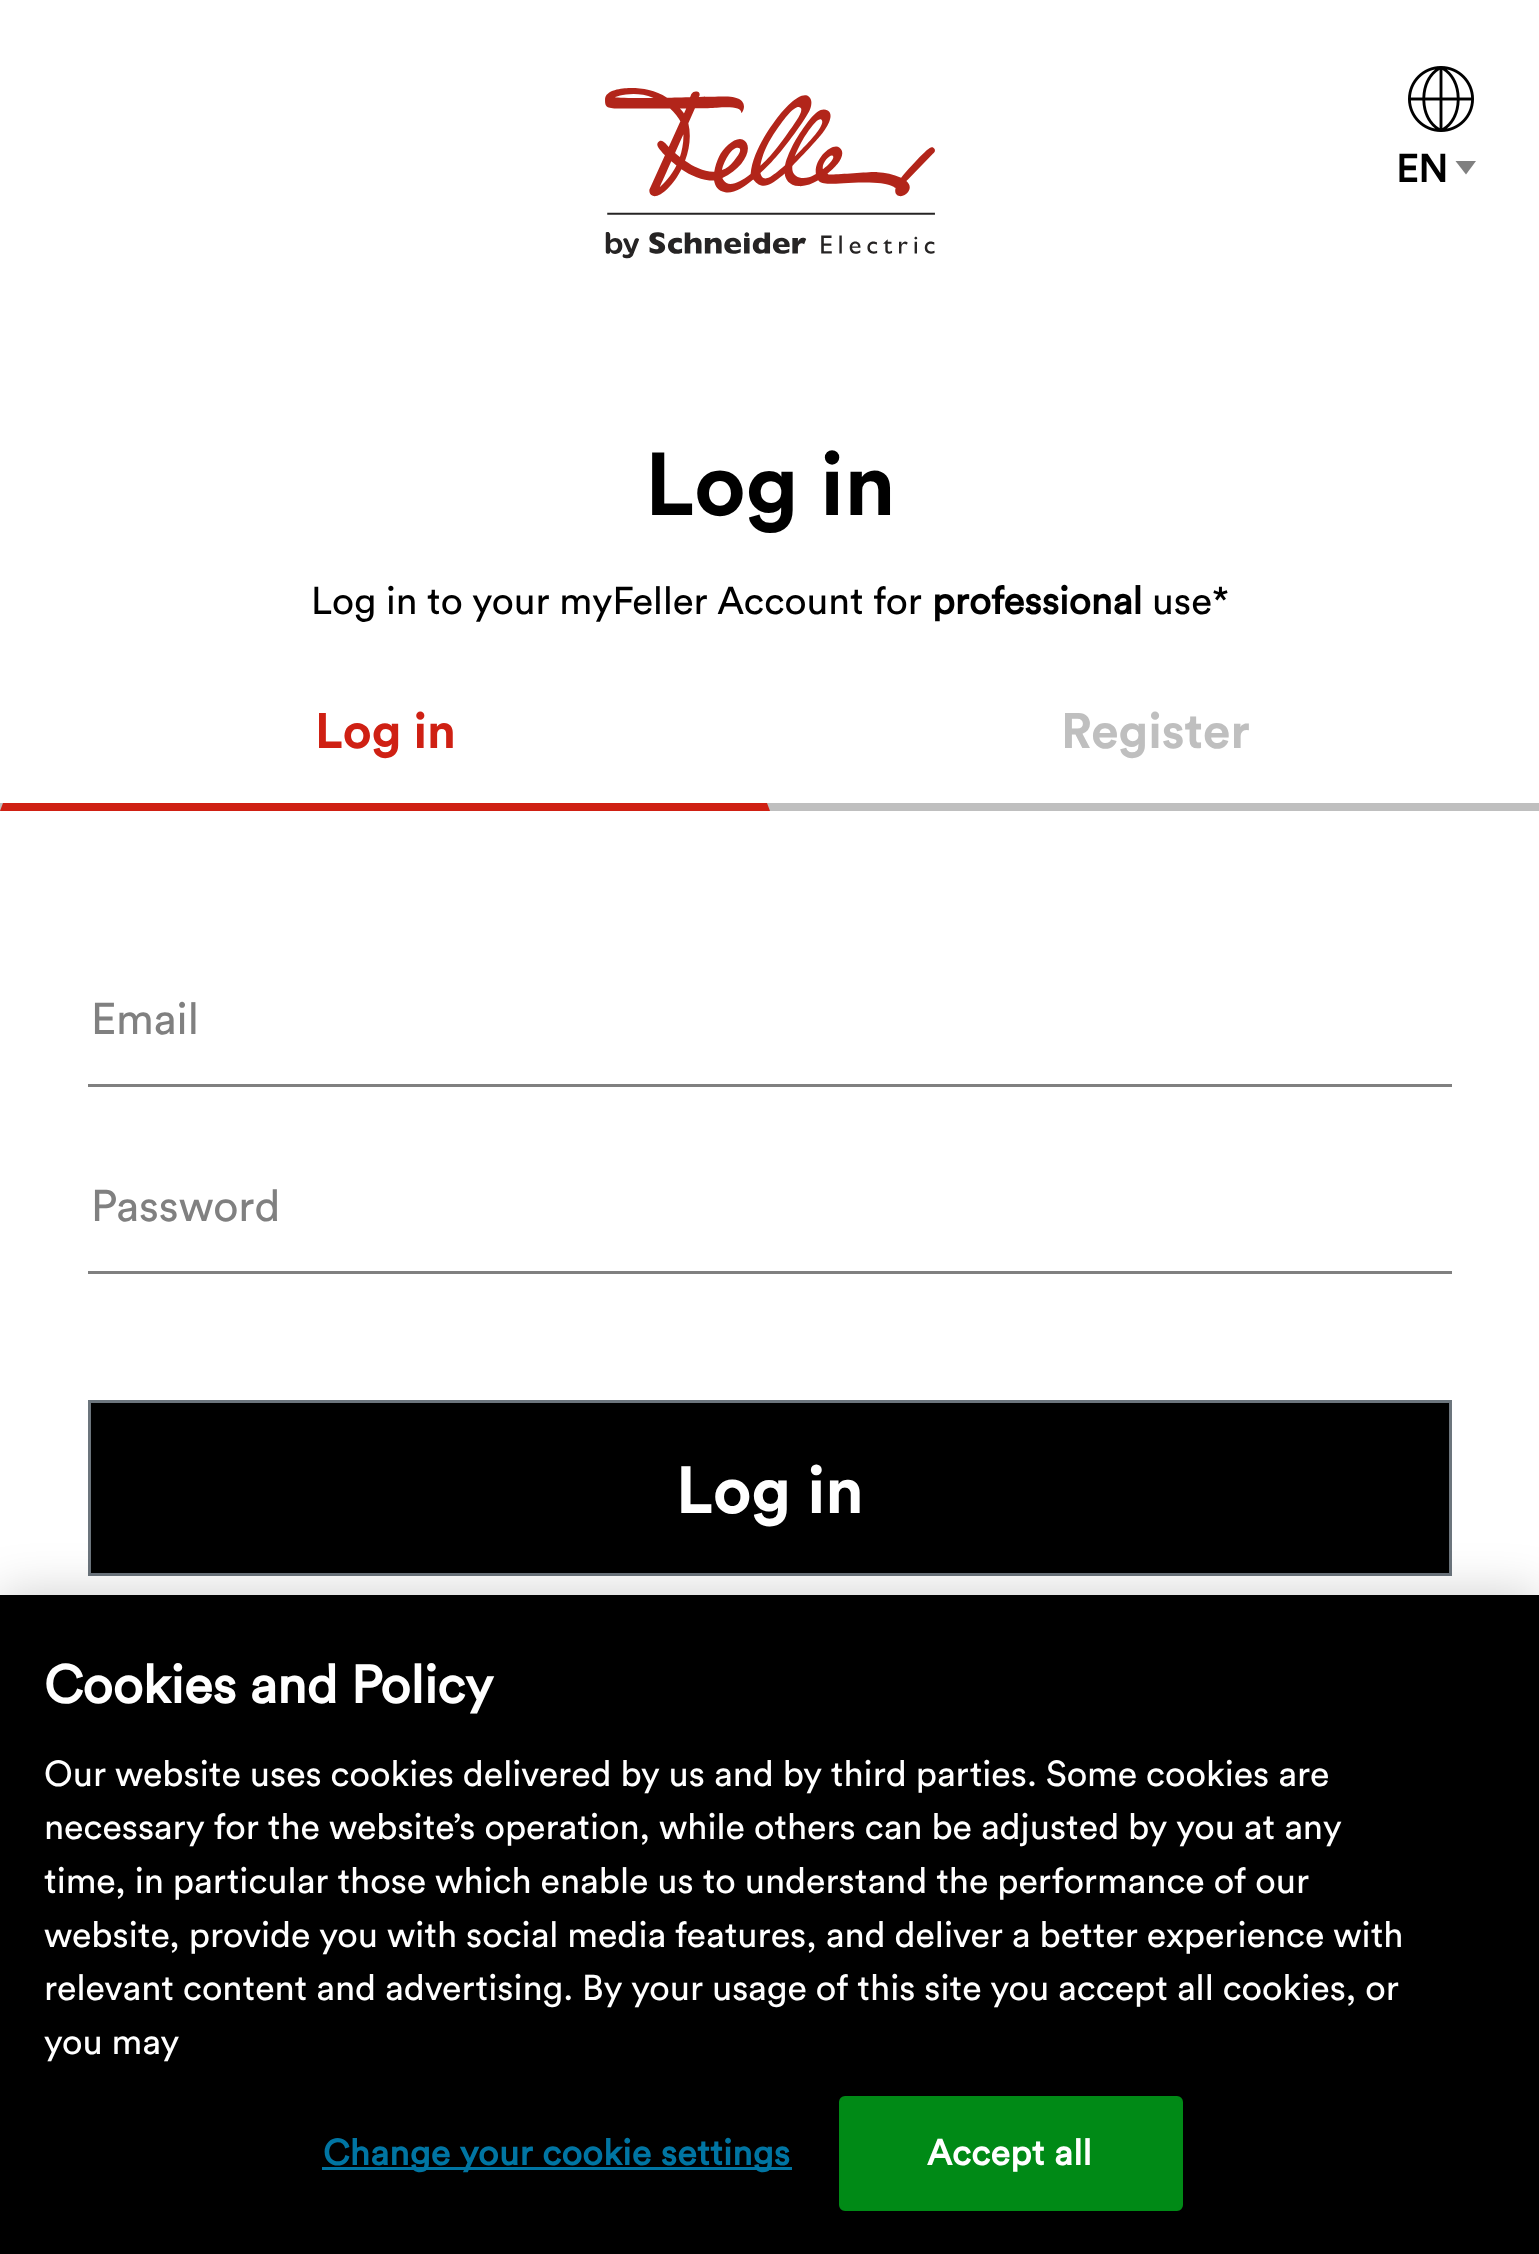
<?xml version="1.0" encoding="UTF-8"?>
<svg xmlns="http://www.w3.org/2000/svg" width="1539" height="2254">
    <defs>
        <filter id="blur1" x="-50%" y="-200%" width="200%" height="500%"><feGaussianBlur stdDeviation="25"/></filter>
    </defs>
    <rect width="100%" height="100%" fill="#FFFFFF"/>
    <image x="1408" y="66" width="66" height="66" href="img_01.png"/>
    <text x="1396" y="182" font-family="'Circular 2'" font-size="38.5" font-weight="700" fill="#000000">EN</text>
    <path d="M 1455.5 161 L 1466 174.5 L 1476 161 Z" fill="#808080"/>
    <image x="605" y="88" width="330" height="171" href="img_02.png"/>
    <text x="645" y="515" font-family="Circular" font-size="88" font-weight="700" fill="#000000">Log in</text>
    <text x="311" y="614" font-family="Circular" font-size="38.5" fill="#000000">Log in to your myFeller Account for</text>
    <text x="932" y="614" font-family="'Circular 2'" font-size="38.5" font-weight="700" fill="#000000">professional</text>
    <text x="1152" y="614" font-family="Circular" font-size="38.5" fill="#000000">use*</text>
    <rect x="0" y="803" width="1539" height="8" fill="#BFBFBF"/>
    <path d="M 770 811 H 0 L 3 803 H 767 Z" fill="#CF2013"/>
    <text x="315" y="748" font-family="Circular" font-size="49.5" font-weight="700" fill="#CF2013">Log in</text>
    <text x="1061" y="748" font-family="Circular" font-size="49.5" font-weight="700" fill="#BFBFBF">Register</text>
    <text x="91" y="1034" font-family="Circular" font-size="44" fill="#808080">Email</text>
    <rect x="88" y="1084" width="1364" height="3" fill="#808080"/>
    <text x="91" y="1221" font-family="Circular" font-size="44" fill="#808080">Password</text>
    <rect x="88" y="1271" width="1364" height="3" fill="#808080"/>
    <rect x="89.5" y="1401.5" width="1361" height="173" fill="#000000" stroke="#6C757D" stroke-width="3"/>
    <text x="676" y="1513" font-family="Circular" font-size="66" font-weight="700" fill="#FFFFFF">Log in</text>
    <rect x="0" y="1595" width="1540" height="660" fill="#000000" fill-opacity="0.2" filter="url(#blur1)"/>
    <rect x="0" y="1595" width="1539" height="659" fill="#000000"/>
    <text x="44" y="1703" font-family="'Circular 2'" font-size="52.75" font-weight="700" fill="#FFFFFF">Cookies and Policy</text>
    <text font-family="Circular" font-size="35.75" fill="#FFFFFF">
        <tspan x="44" y="1786">Our website uses cookies delivered by us and by third parties. Some cookies are</tspan>
        <tspan x="44" y="1839">necessary for the website’s operation, while others can be adjusted by you at any</tspan>
        <tspan x="44" y="1893">time, in particular those which enable us to understand the performance of our</tspan>
        <tspan x="44" y="1947">website, provide you with social media features, and deliver a better experience with</tspan>
        <tspan x="44" y="2000">relevant content and advertising. By your usage of this site you accept all cookies, or</tspan>
        <tspan x="44" y="2054">you may</tspan>
    </text>
    <rect x="322" y="2167" width="470" height="3" fill="#0075A3"/>
    <text x="323" y="2165" font-family="'Circular 2'" font-size="35.75" font-weight="700" letter-spacing="0.35" fill="#0075A3">Change your cookie settings</text>
    <rect x="840.5" y="2097.5" width="341" height="112" rx="4.5" fill="#008A16" stroke="#008A16" stroke-width="3"/>
    <text x="927" y="2165" font-family="'Circular 2'" font-size="35.75" font-weight="700" letter-spacing="0.35" fill="#FFFFFF">Accept all</text>
</svg>
